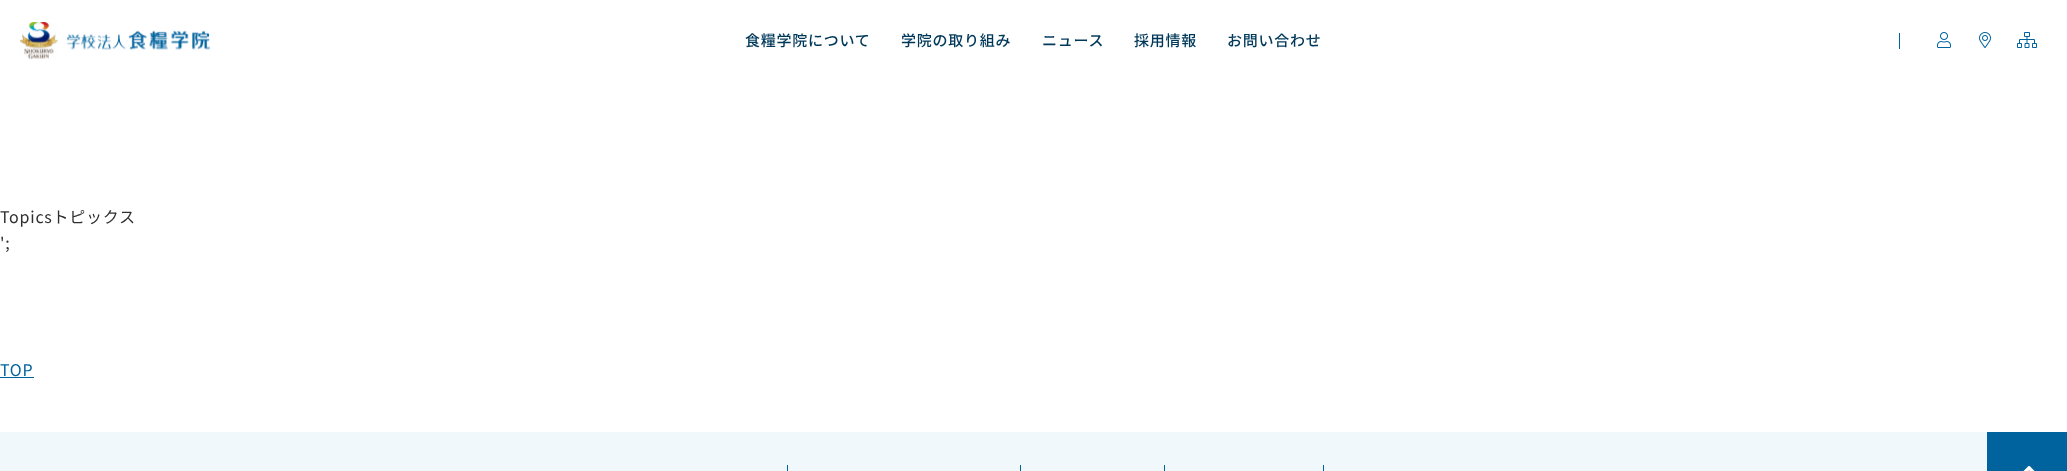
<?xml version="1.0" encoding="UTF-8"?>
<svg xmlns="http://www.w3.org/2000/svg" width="2067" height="471">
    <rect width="100%" height="100%" fill="#FFFFFF"/>
    <image x="20" y="22" width="190" height="38" href="img_01.png"/>
    <text x="745" y="46" font-family="Noto Sans JP" font-size="15" font-weight="500" letter-spacing="0.75" fill="#00385A">食糧学院について</text>
    <text x="901" y="46" font-family="Noto Sans JP" font-size="15" font-weight="500" letter-spacing="0.75" fill="#00385A">学院の取り組み</text>
    <text x="1042" y="46" font-family="Noto Sans JP" font-size="15" font-weight="500" letter-spacing="0.75" fill="#00385A">ニュース</text>
    <text x="1134" y="46" font-family="Noto Sans JP" font-size="15" font-weight="500" letter-spacing="0.75" fill="#00385A">採用情報</text>
    <text x="1227" y="46" font-family="Noto Sans JP" font-size="15" font-weight="500" letter-spacing="0.75" fill="#00385A">お問い合わせ</text>
    <rect x="1899" y="33" width="1" height="16" fill="#00639E"/>
    <image x="1937" y="32" width="14" height="16" href="img_02.png"/>
    <image x="1979" y="32" width="12" height="16" href="img_03.png"/>
    <image x="2017" y="32" width="20" height="16" href="img_04.png"/>
    <text font-family="Noto Sans JP" font-size="16" letter-spacing="0.75" fill="#2F2F2F">
        <tspan x="0" y="223">Topicsトピックス</tspan>
        <tspan x="0" y="249">';</tspan>
    </text>
    <text x="0" y="376" font-family="Noto Sans JP" font-size="16" letter-spacing="0.75" fill="#00639E">TOP</text>
    <rect x="0" y="377" width="34" height="1" fill="#00639E"/>
    <rect x="0" y="432" width="1987" height="39" fill="#F1F8FC"/>
    <rect x="787" y="465" width="1" height="6" fill="#00639E"/>
    <rect x="1020" y="465" width="1" height="6" fill="#00639E"/>
    <rect x="1164" y="465" width="1" height="6" fill="#00639E"/>
    <rect x="1323" y="465" width="1" height="6" fill="#00639E"/>
    <rect x="1987" y="432" width="80" height="39" fill="#00639E"/>
    <image x="2023" y="466" width="12" height="5" href="img_05.png"/>
</svg>
